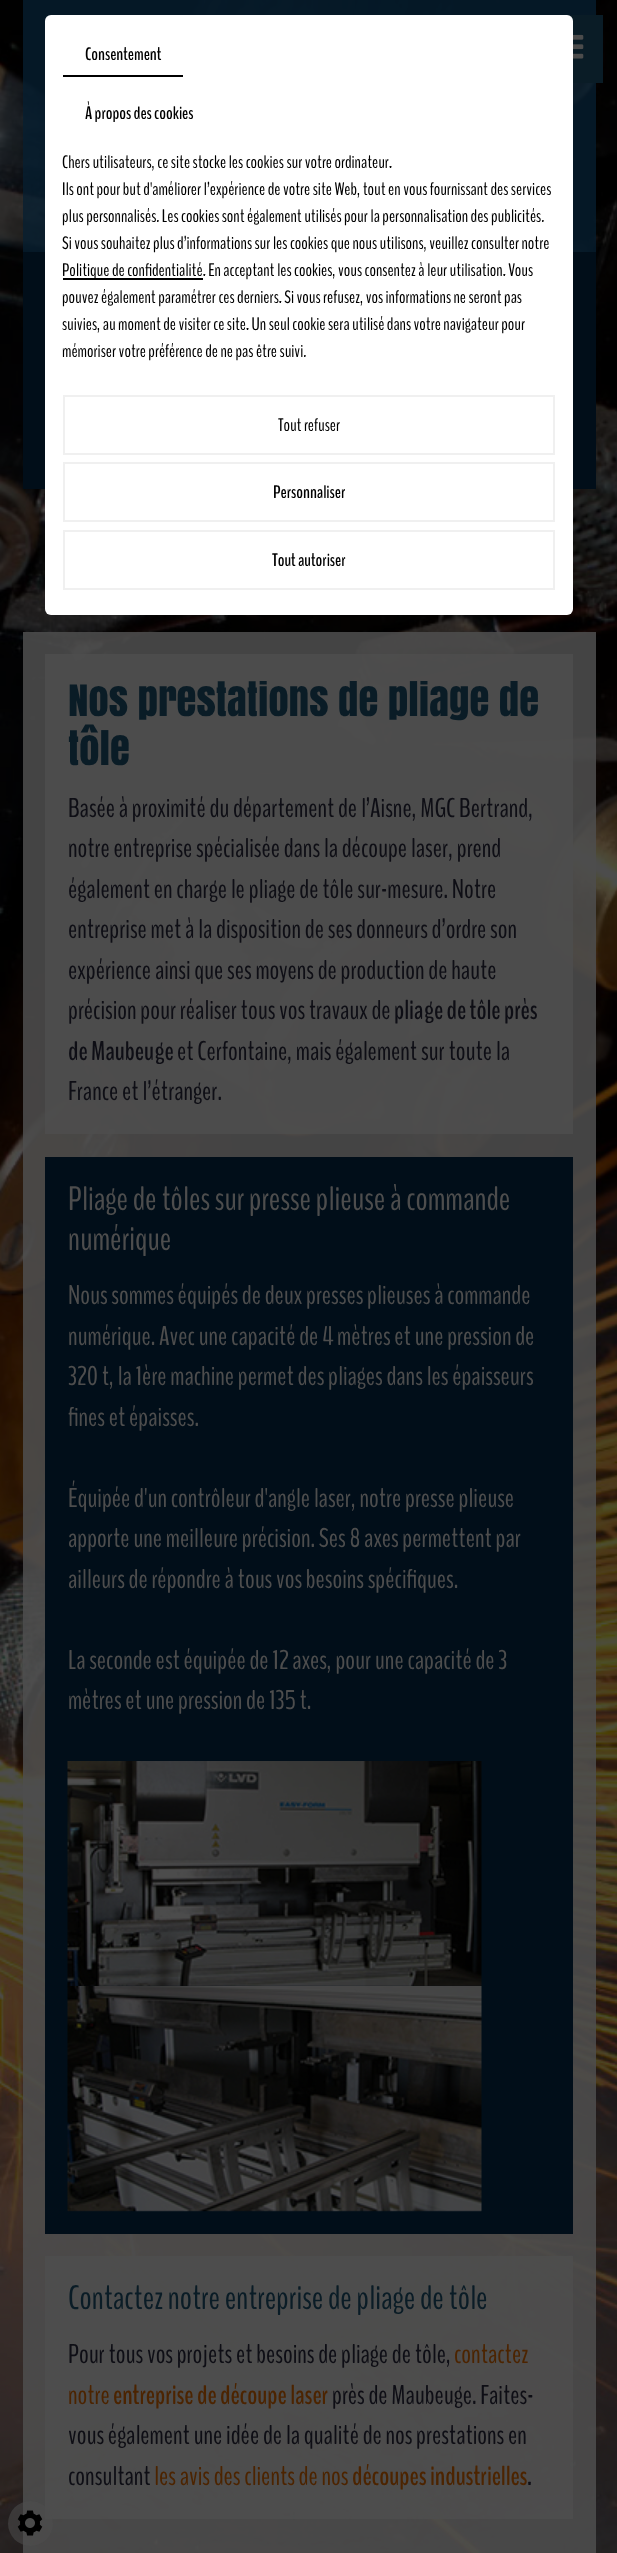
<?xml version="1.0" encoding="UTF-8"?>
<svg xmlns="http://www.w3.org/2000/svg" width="617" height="2553">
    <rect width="100%" height="100%" fill="#FFFFFF"/>
    <image x="0" y="0" width="617" height="2553" href="img_01.png"/>
    <rect x="23" y="0" width="573" height="252" fill="#061F31" fill-opacity="0.77"/>
    <rect x="23" y="252" width="573" height="237" fill="#010E19"/>
    <rect x="567" y="15" width="36" height="68" fill="#0A1C26"/>
    <rect x="45" y="15" width="528" height="600" rx="6" fill="#FFFFFF"/>
    <rect x="63" y="75" width="120" height="2" fill="#000000"/>
    <text x="85" y="60" font-family="BenchNine" font-size="18" font-weight="700" fill="#000000">Consentement</text>
    <text x="85" y="119" font-family="BenchNine" font-size="18" font-weight="700" fill="#000000">À propos des cookies</text>
    <text font-family="BenchNine" font-size="18" fill="#000000">
        <tspan x="62" y="168">Chers utilisateurs, ce site stocke les cookies sur votre ordinateur.</tspan>
        <tspan x="62" y="195">Ils ont pour but d'améliorer l’expérience de votre site Web, tout en vous fournissant des services</tspan>
        <tspan x="62" y="222">plus personnalisés. Les cookies sont également utilisés pour la personnalisation des publicités.</tspan>
        <tspan x="62" y="249">Si vous souhaitez plus d’informations sur les cookies que nous utilisons, veuillez consulter notre</tspan>
    </text>
    <rect x="63" y="278" width="140" height="2" fill="#000000"/>
    <text font-family="BenchNine" font-size="18" fill="#000000">
        <tspan x="62" y="276">Politique de confidentialité. En acceptant les cookies, vous consentez à leur utilisation. Vous</tspan>
        <tspan x="62" y="303">pouvez également paramétrer ces derniers. Si vous refusez, vos informations ne seront pas</tspan>
        <tspan x="62" y="330">suivies, au moment de visiter ce site. Un seul cookie sera utilisé dans votre navigateur pour</tspan>
        <tspan x="62" y="357">mémoriser votre préférence de ne pas être suivi.</tspan>
    </text>
    <rect x="64" y="396" width="490" height="58" fill="none" stroke="#F0F0F0" stroke-width="2"/>
    <text x="278" y="431" font-family="BenchNine" font-size="18" fill="#000000">Tout refuser</text>
    <rect x="64" y="463" width="490" height="58" fill="none" stroke="#F0F0F0" stroke-width="2"/>
    <text x="273" y="498" font-family="BenchNine" font-size="18" font-weight="700" fill="#000000">Personnaliser</text>
    <rect x="64" y="531" width="490" height="58" fill="none" stroke="#F0F0F0" stroke-width="2"/>
    <text x="272" y="566" font-family="BenchNine" font-size="18" font-weight="700" fill="#000000">Tout autoriser</text>
    <image x="573" y="34" width="11" height="25" href="img_02.png"/>
    <rect x="23" y="632" width="573" height="1921" fill="#4D4D4D" fill-opacity="0.88"/>
    <rect x="45" y="654" width="528" height="480" fill="#4D4D4D" fill-opacity="0.88"/>
    <text font-family="Anton" font-size="40.5" fill="#0A1C26">
        <tspan x="68" y="716">Nos prestations de pliage de</tspan>
        <tspan x="68" y="765">tôle</tspan>
    </text>
    <text font-family="BenchNine" font-size="27" fill="#0E0E15">
        <tspan x="68" y="817">Basée à proximité du département de l’Aisne, MGC Bertrand,</tspan>
        <tspan x="68" y="857">notre entreprise spécialisée dans la découpe laser, prend</tspan>
        <tspan x="68" y="898">également en charge le pliage de tôle sur-mesure. Notre</tspan>
        <tspan x="68" y="938">entreprise met à la disposition de ses donneurs d’ordre son</tspan>
        <tspan x="68" y="979">expérience ainsi que ses moyens de production de haute</tspan>
        <tspan x="68" y="1019">précision pour réaliser tous vos travaux de</tspan>
    </text>
    <text x="394" y="1019" font-family="BenchNine" font-size="27" font-weight="700" fill="#0E0E15">pliage de tôle près</text>
    <text x="68" y="1060" font-family="BenchNine" font-size="27" font-weight="700" fill="#0E0E15">de Maubeuge</text>
    <text x="177" y="1060" font-family="BenchNine" font-size="27" fill="#0E0E15">et Cerfontaine, mais également sur toute la</text>
    <text x="68" y="1100" font-family="BenchNine" font-size="27" fill="#0E0E15">France et l’étranger.</text>
    <rect x="45" y="1157" width="528" height="1077" fill="#010E19"/>
    <text font-family="BenchNine" font-size="33.75" fill="#4D4D4D">
        <tspan x="68" y="1210">Pliage de tôles sur presse plieuse à commande</tspan>
        <tspan x="68" y="1250">numérique</tspan>
    </text>
    <text font-family="BenchNine" font-size="27" fill="#4D4D4D">
        <tspan x="68" y="1304">Nous sommes équipés de deux presses plieuses à commande</tspan>
        <tspan x="68" y="1345">numérique. Avec une capacité de 4 mètres et une pression de</tspan>
        <tspan x="68" y="1385">320 t, la 1ère machine permet des pliages dans les épaisseurs</tspan>
        <tspan x="68" y="1426">fines et épaisses.</tspan>
    </text>
    <text font-family="BenchNine" font-size="27" fill="#4D4D4D">
        <tspan x="68" y="1507">Équipée d'un contrôleur d'angle laser, notre presse plieuse</tspan>
        <tspan x="68" y="1547">apporte une meilleure précision. Ses 8 axes permettent par</tspan>
        <tspan x="68" y="1588">ailleurs de répondre à tous vos besoins spécifiques.</tspan>
    </text>
    <text font-family="BenchNine" font-size="27" fill="#4D4D4D">
        <tspan x="68" y="1669">La seconde est équipée de 12 axes, pour une capacité de 3</tspan>
        <tspan x="68" y="1709">mètres et une pression de 135 t.</tspan>
    </text>
    <image x="67" y="1761" width="415" height="226" href="img_03.png"/>
    <image x="67" y="1986" width="415" height="226" href="img_04.png"/>
    <rect x="45" y="2256" width="528" height="263" fill="#4D4D4D" fill-opacity="0.88"/>
    <text x="68" y="2309" font-family="BenchNine" font-size="33.75" fill="#0A1C26">Contactez notre entreprise de pliage de tôle</text>
    <text x="68" y="2363" font-family="BenchNine" font-size="27" fill="#0E0E15">Pour tous vos projets et besoins de pliage de tôle,</text>
    <text x="454" y="2363" font-family="BenchNine" font-size="27" fill="#4C2400">contactez</text>
    <text x="68" y="2404" font-family="BenchNine" font-size="27" fill="#4C2400">notre</text>
    <text x="113" y="2404" font-family="BenchNine" font-size="27" font-weight="700" fill="#4C2400">entreprise de découpe laser</text>
    <text x="332" y="2404" font-family="BenchNine" font-size="27" fill="#0E0E15">près de Maubeuge. Faites-</text>
    <text font-family="BenchNine" font-size="27" fill="#0E0E15">
        <tspan x="68" y="2444">vous également une idée de la qualité de nos prestations en</tspan>
        <tspan x="68" y="2485">consultant</tspan>
    </text>
    <text x="154" y="2485" font-family="BenchNine" font-size="27" fill="#4C2400">les avis des clients de nos</text>
    <text x="352" y="2485" font-family="BenchNine" font-size="27" font-weight="700" fill="#4C2400">découpes industrielles</text>
    <text x="527" y="2485" font-family="BenchNine" font-size="27" font-weight="700" fill="#0E0E15">.</text>
    <circle cx="30.5" cy="2523.5" r="22.5" fill="#4D4D4D" fill-opacity="0.54"/>
    <image x="17" y="2510" width="26" height="26" href="img_05.png"/>
</svg>
